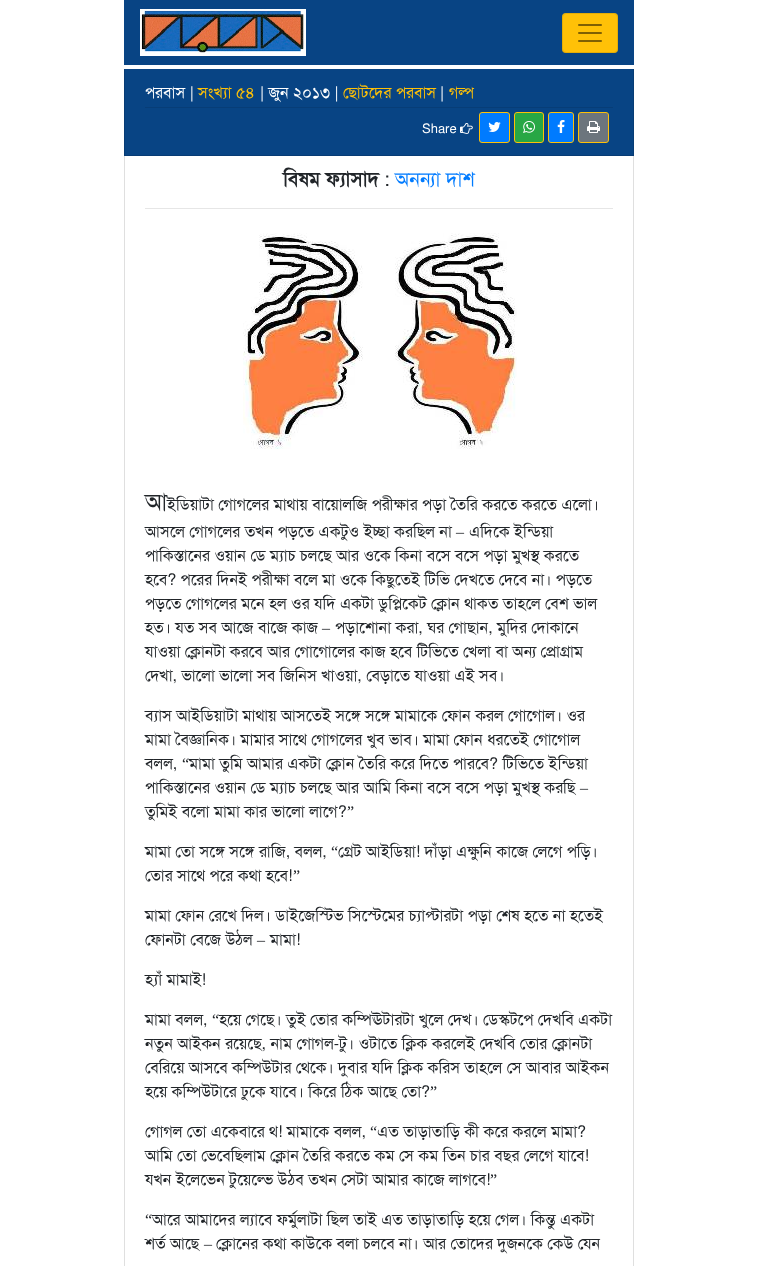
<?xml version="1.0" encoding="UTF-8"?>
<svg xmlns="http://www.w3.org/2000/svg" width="758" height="1266">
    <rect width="100%" height="100%" fill="#FFFFFF"/>
    <rect x="124" y="0" width="510" height="65" fill="#084484"/>
    <image x="140" y="9" width="166" height="47" href="img_01.png"/>
    <rect x="562" y="13" width="56" height="40" rx="4" fill="#FFC107"/>
    <rect x="562.5" y="13.5" width="55" height="39" rx="3.5" fill="none" stroke="#000000" stroke-opacity="0.1"/>
    <image x="578" y="24" width="24" height="18" href="img_02.png"/>
    <rect x="124" y="69" width="510" height="87" fill="#084484"/>
    <path d="M 634 69 V 156 L 633 155 V 69 Z" fill="#073C74"/>
    <path d="M 634 156 H 124 L 125 155 H 633 Z" fill="#000000" fill-opacity="0.12"/>
    <path d="M 124 156 V 69 H 125 V 155 Z" fill="#000000" fill-opacity="0.12"/>
    <text x="145" y="98" font-family="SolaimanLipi" font-size="16" fill="#FFFFFF">পরবাস |</text>
    <text x="198" y="98" font-family="SolaimanLipi" font-size="16" fill="#FFC107">সংখ্যা ৫৪</text>
    <text x="260" y="98" font-family="SolaimanLipi" font-size="16" fill="#FFFFFF">| জুন ২০১৩ |</text>
    <text x="343" y="98" font-family="SolaimanLipi" font-size="16" fill="#FFC107">ছোটদের পরবাস</text>
    <text x="440" y="98" font-family="SolaimanLipi" font-size="16" fill="#FFFFFF">|</text>
    <text x="449" y="98" font-family="SolaimanLipi" font-size="16" fill="#FFC107">গল্প</text>
    <rect x="145" y="107" width="468" height="1" fill="#073D77"/>
    <text x="422" y="133" font-family="SolaimanLipi" font-size="13" fill="#FFFFFF">Share</text>
    <image x="460" y="123" width="13" height="11" href="img_03.png"/>
    <rect x="479.5" y="112.5" width="30" height="30" rx="2.5" fill="#007BFF" stroke="#FFC107"/>
    <image x="488" y="122" width="13" height="10" href="img_04.png"/>
    <rect x="514.5" y="112.5" width="29" height="30" rx="2.5" fill="#28A745" stroke="#FFC107"/>
    <image x="523" y="121" width="12" height="12" href="img_05.png"/>
    <rect x="548.5" y="112.5" width="25" height="30" rx="2.5" fill="#007BFF" stroke="#FFC107"/>
    <image x="557" y="120" width="8" height="13" href="img_06.png"/>
    <rect x="578.5" y="112.5" width="30" height="30" rx="2.5" fill="#6C757D" stroke="#FFC107"/>
    <image x="587" y="121" width="13" height="12" href="img_07.png"/>
    <path d="M 634 156 V 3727 L 633 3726 V 156 Z" fill="#DFDFDF"/>
    <path d="M 124 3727 V 156 H 125 V 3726 Z" fill="#DFDFDF"/>
    <text x="283" y="186" font-family="SolaimanLipi" font-size="20" font-weight="700" fill="#212529">বিষম ফ্যাসাদ</text>
    <text x="384" y="186" font-family="SolaimanLipi" font-size="20" fill="#212529">:</text>
    <text x="395" y="186" font-family="SolaimanLipi" font-size="20" fill="#007BFF">অনন্যা দাশ</text>
    <rect x="145" y="208" width="468" height="1" fill="#E6E6E6"/>
    <image x="243" y="233" width="274" height="216" href="img_08.png"/>
    <text x="145" y="510" font-family="SolaimanLipi" font-size="24" fill="#212529">আ</text>
    <text x="167" y="510" font-family="SolaimanLipi" font-size="16" fill="#212529">ইডিয়াটা গোগলের মাথায় বায়োলজি পরীক্ষার পড়া তৈরি করতে করতে এলো।</text>
    <text x="145" y="537" font-family="SolaimanLipi" font-size="16" fill="#212529">আসলে গোগলের তখন পড়তে একটুও ইচ্ছা করছিল না</text>
    <text x="456" y="537" font-family="Liberation Serif" font-size="16" fill="#212529">–</text>
    <text x="469" y="537" font-family="SolaimanLipi" font-size="16" fill="#212529">এদিকে ইন্ডিয়া</text>
    <text font-family="SolaimanLipi" font-size="16" fill="#212529">
        <tspan x="145" y="561">পাকিস্তানের ওয়ান ডে ম্যাচ চলছে আর ওকে কিনা বসে বসে পড়া মুখস্থ করতে</tspan>
        <tspan x="145" y="585">হবে? পরের দিনই পরীক্ষা বলে মা ওকে কিছুতেই টিভি দেখতে দেবে না। পড়তে</tspan>
        <tspan x="145" y="609">পড়তে গোগলের মনে হল ওর যদি একটা ডুপ্লিকেট ক্লোন থাকত তাহলে বেশ ভাল</tspan>
        <tspan x="145" y="633">হত। যত সব আজে বাজে কাজ</tspan>
    </text>
    <text x="322" y="633" font-family="Liberation Serif" font-size="16" fill="#212529">–</text>
    <text x="335" y="633" font-family="SolaimanLipi" font-size="16" fill="#212529">পড়াশোনা করা, ঘর গোছান, মুদির দোকানে</text>
    <text font-family="SolaimanLipi" font-size="16" fill="#212529">
        <tspan x="145" y="657">যাওয়া ক্লোনটা করবে আর গোগোলের কাজ হবে টিভিতে খেলা বা অন্য প্রোগ্রাম</tspan>
        <tspan x="145" y="681">দেখা, ভালো ভালো সব জিনিস খাওয়া, বেড়াতে যাওয়া এই সব।</tspan>
    </text>
    <text font-family="SolaimanLipi" font-size="16" fill="#212529">
        <tspan x="145" y="721">ব্যাস আইডিয়াটা মাথায় আসতেই সঙ্গে সঙ্গে মামাকে ফোন করল গোগোল। ওর</tspan>
        <tspan x="145" y="745">মামা বৈজ্ঞানিক। মামার সাথে গোগলের খুব ভাব। মামা ফোন ধরতেই গোগোল</tspan>
        <tspan x="145" y="769">বলল,</tspan>
    </text>
    <text x="182" y="769" font-family="Liberation Serif" font-size="16" fill="#212529">“</text>
    <text x="189" y="769" font-family="SolaimanLipi" font-size="16" fill="#212529">মামা তুমি আমার একটা ক্লোন তৈরি করে দিতে পারবে? টিভিতে ইন্ডিয়া</text>
    <text x="145" y="793" font-family="SolaimanLipi" font-size="16" fill="#212529">পাকিস্তানের ওয়ান ডে ম্যাচ চলছে আর আমি কিনা বসে বসে পড়া মুখস্থ করছি</text>
    <text x="580" y="793" font-family="Liberation Serif" font-size="16" fill="#212529">–</text>
    <text x="145" y="817" font-family="SolaimanLipi" font-size="16" fill="#212529">তুমিই বলো মামা কার ভালো লাগে?</text>
    <text x="347" y="817" font-family="Liberation Serif" font-size="16" fill="#212529">”</text>
    <text x="145" y="857" font-family="SolaimanLipi" font-size="16" fill="#212529">মামা তো সঙ্গে সঙ্গে রাজি, বলল,</text>
    <text x="331" y="857" font-family="Liberation Serif" font-size="16" fill="#212529">“</text>
    <text x="338" y="857" font-family="SolaimanLipi" font-size="16" fill="#212529">গ্রেট আইডিয়া! দাঁড়া এক্ষুনি কাজে লেগে পড়ি।</text>
    <text x="145" y="881" font-family="SolaimanLipi" font-size="16" fill="#212529">তোর সাথে পরে কথা হবে!</text>
    <text x="293" y="881" font-family="Liberation Serif" font-size="16" fill="#212529">”</text>
    <text font-family="SolaimanLipi" font-size="16" fill="#212529">
        <tspan x="145" y="921">মামা ফোন রেখে দিল। ডাইজেস্টিভ সিস্টেমের চ্যাপ্টারটা পড়া শেষ হতে না হতেই</tspan>
        <tspan x="145" y="945">ফোনটা বেজে উঠল</tspan>
    </text>
    <text x="257" y="945" font-family="Liberation Serif" font-size="16" fill="#212529">–</text>
    <text x="270" y="945" font-family="SolaimanLipi" font-size="16" fill="#212529">মামা!</text>
    <text x="145" y="985" font-family="SolaimanLipi" font-size="16" fill="#212529">হ্যাঁ মামাই!</text>
    <text x="145" y="1025" font-family="SolaimanLipi" font-size="16" fill="#212529">মামা বলল,</text>
    <text x="212" y="1025" font-family="Liberation Serif" font-size="16" fill="#212529">“</text>
    <text x="219" y="1025" font-family="SolaimanLipi" font-size="16" fill="#212529">হয়ে গেছে। তুই তোর কম্পিঊটারটা খুলে দেখ। ডেস্কটপে দেখবি একটা</text>
    <text font-family="SolaimanLipi" font-size="16" fill="#212529">
        <tspan x="145" y="1049">নতুন আইকন রয়েছে, নাম গোগল-টু। ওটাতে ক্লিক করলেই দেখবি তোর ক্লোনটা</tspan>
        <tspan x="145" y="1073">বেরিয়ে আসবে কম্পিউটার থেকে। দুবার যদি ক্লিক করিস তাহলে সে আবার আইকন</tspan>
        <tspan x="145" y="1097">হয়ে কম্পিউটারে ঢুকে যাবে। কিরে ঠিক আছে তো?</tspan>
    </text>
    <text x="430" y="1097" font-family="Liberation Serif" font-size="16" fill="#212529">”</text>
    <text x="145" y="1137" font-family="SolaimanLipi" font-size="16" fill="#212529">গোগল তো একেবারে থ! মামাকে বলল,</text>
    <text x="370" y="1137" font-family="Liberation Serif" font-size="16" fill="#212529">“</text>
    <text x="377" y="1137" font-family="SolaimanLipi" font-size="16" fill="#212529">এত তাড়াতাড়ি কী করে করলে মামা?</text>
    <text font-family="SolaimanLipi" font-size="16" fill="#212529">
        <tspan x="145" y="1161">আমি তো ভেবেছিলাম ক্লোন তৈরি করতে কম সে কম তিন চার বছর লেগে যাবে!</tspan>
        <tspan x="145" y="1185">যখন ইলেভেন টুয়েল্ভে উঠব তখন সেটা আমার কাজে লাগবে!</tspan>
    </text>
    <text x="490" y="1185" font-family="Liberation Serif" font-size="16" fill="#212529">”</text>
    <text x="145" y="1225" font-family="Liberation Serif" font-size="16" fill="#212529">“</text>
    <text x="152" y="1225" font-family="SolaimanLipi" font-size="16" fill="#212529">আরে আমাদের ল্যাবে ফর্মুলাটা ছিল তাই এত তাড়াতাড়ি হয়ে গেল। কিন্তু একটা</text>
    <text x="145" y="1249" font-family="SolaimanLipi" font-size="16" fill="#212529">শর্ত আছে</text>
    <text x="204" y="1249" font-family="Liberation Serif" font-size="16" fill="#212529">–</text>
    <text x="216" y="1249" font-family="SolaimanLipi" font-size="16" fill="#212529">ক্লোনের কথা কাউকে বলা চলবে না। আর তোদের দুজনকে কেউ যেন</text>
</svg>
